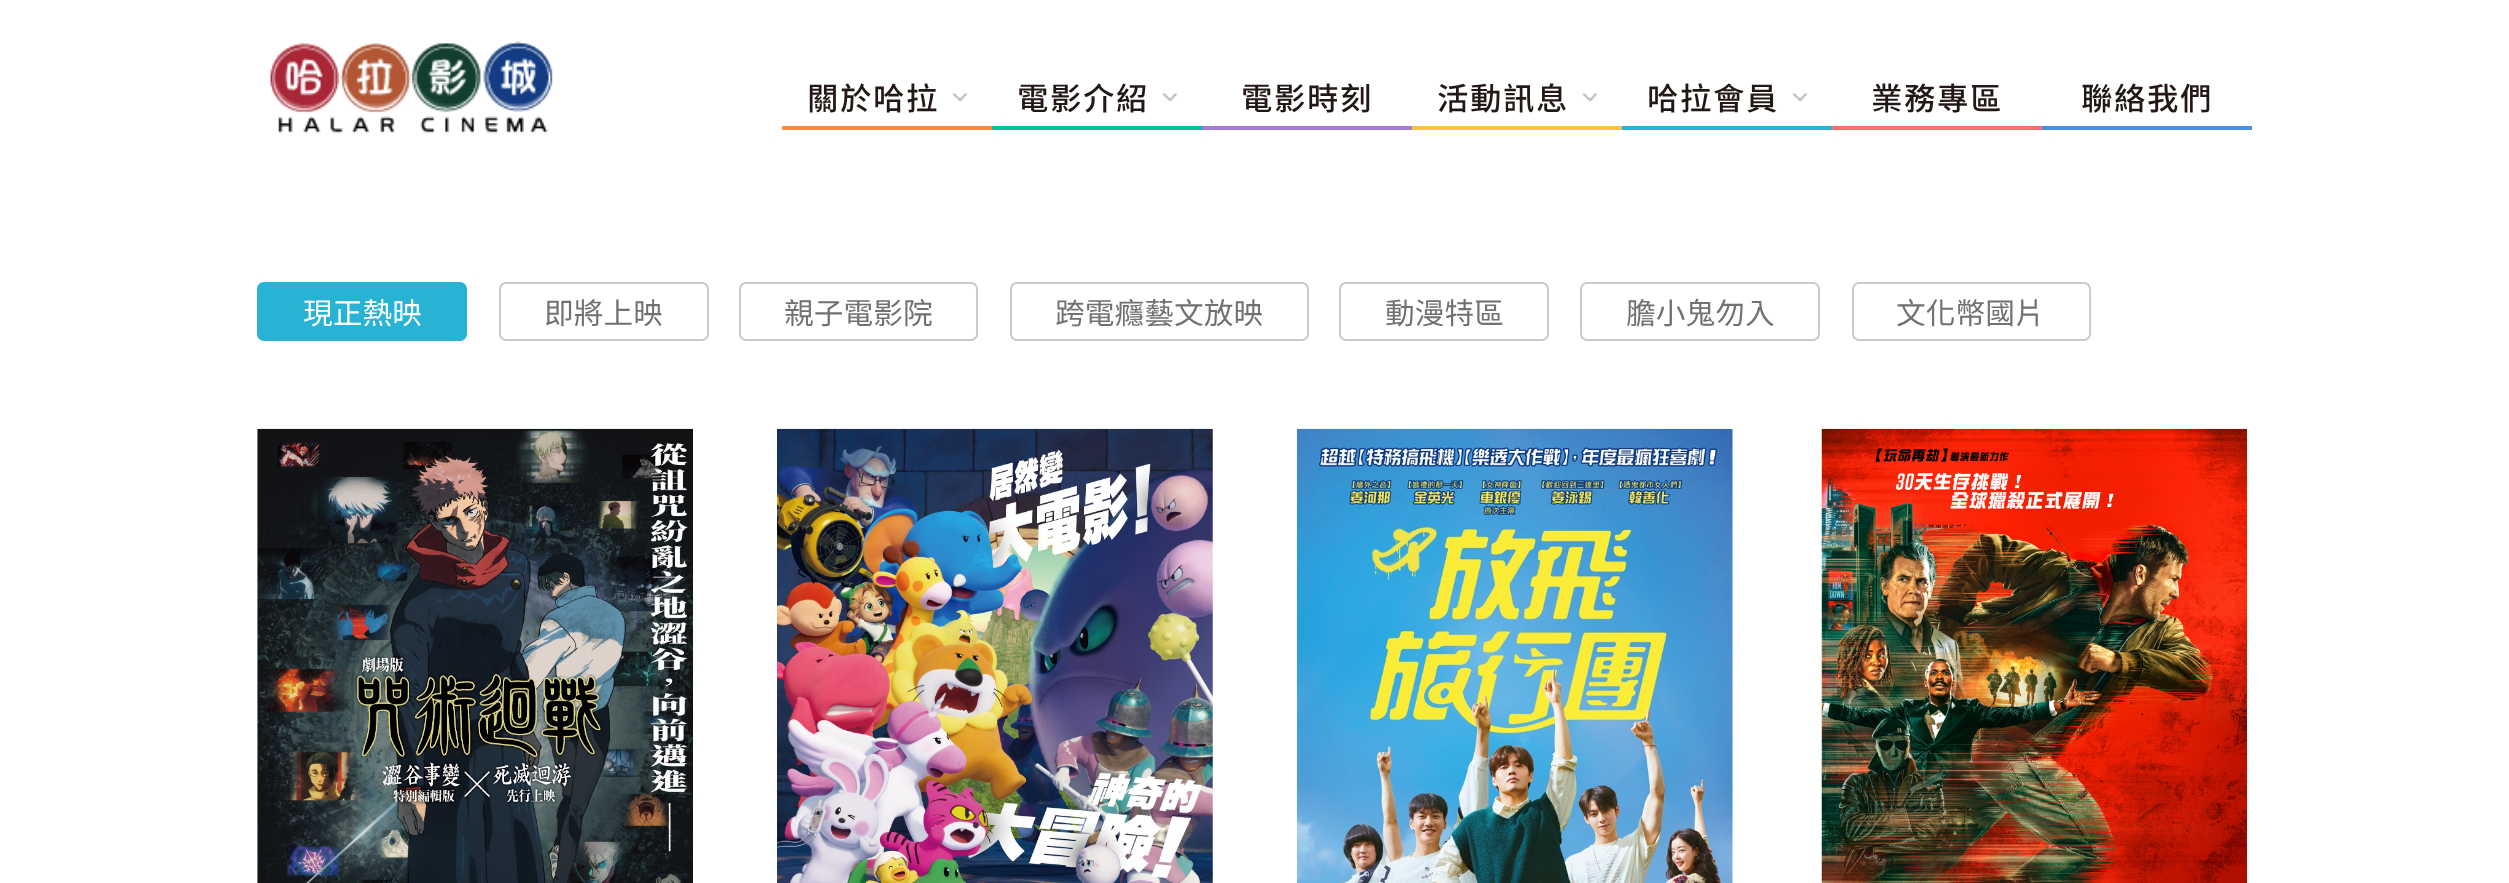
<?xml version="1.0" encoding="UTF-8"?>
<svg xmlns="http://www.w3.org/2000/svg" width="2509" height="883">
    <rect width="100%" height="100%" fill="#FFFFFF"/>
    <image x="270" y="41" width="283" height="93" href="img_01.png"/>
    <rect x="782" y="126" width="210" height="4" fill="#FF8C3E"/>
    <text x="807" y="110" font-family="Noto Sans TC" font-size="31.5" font-weight="500" letter-spacing="1.5" fill="#231815">關於哈拉</text>
    <image x="952" y="93" width="16" height="9" href="img_02.png"/>
    <rect x="992" y="126" width="210" height="4" fill="#08C19D"/>
    <text x="1017" y="110" font-family="Noto Sans TC" font-size="31.5" font-weight="500" letter-spacing="1.5" fill="#231815">電影介紹</text>
    <image x="1162" y="93" width="16" height="9" href="img_03.png"/>
    <rect x="1202" y="126" width="210" height="4" fill="#A37CD1"/>
    <text x="1241" y="110" font-family="Noto Sans TC" font-size="31.5" font-weight="500" letter-spacing="1.5" fill="#231815">電影時刻</text>
    <rect x="1412" y="126" width="210" height="4" fill="#F7C443"/>
    <text x="1437" y="110" font-family="Noto Sans TC" font-size="31.5" font-weight="500" letter-spacing="1.5" fill="#231815">活動訊息</text>
    <image x="1582" y="93" width="16" height="9" href="img_03.png"/>
    <rect x="1622" y="126" width="210" height="4" fill="#28B2D3"/>
    <text x="1647" y="110" font-family="Noto Sans TC" font-size="31.5" font-weight="500" letter-spacing="1.5" fill="#231815">哈拉會員</text>
    <image x="1792" y="93" width="16" height="9" href="img_02.png"/>
    <rect x="1832" y="126" width="210" height="4" fill="#FC7070"/>
    <text x="1871" y="110" font-family="Noto Sans TC" font-size="31.5" font-weight="500" letter-spacing="1.5" fill="#231815">業務專區</text>
    <rect x="2042" y="126" width="210" height="4" fill="#4A90E2"/>
    <text x="2081" y="110" font-family="Noto Sans TC" font-size="31.5" font-weight="500" letter-spacing="1.5" fill="#231815">聯絡我們</text>
    <rect x="258" y="283" width="208" height="57" rx="6" fill="#28B2D3" stroke="#28B2D3" stroke-width="2"/>
    <text x="303" y="324" font-family="Noto Sans TC" font-size="29.75" fill="#FFFFFF">現正熱映</text>
    <rect x="500" y="283" width="208" height="57" rx="6" fill="none" stroke="#C9CACA" stroke-width="2"/>
    <text x="544" y="324" font-family="Noto Sans TC" font-size="29.75" fill="#727171">即將上映</text>
    <rect x="740" y="283" width="237" height="57" rx="6" fill="none" stroke="#C9CACA" stroke-width="2"/>
    <text x="784" y="324" font-family="Noto Sans TC" font-size="29.75" fill="#727171">親子電影院</text>
    <rect x="1011" y="283" width="297" height="57" rx="6" fill="none" stroke="#C9CACA" stroke-width="2"/>
    <text x="1055" y="324" font-family="Noto Sans TC" font-size="29.75" fill="#727171">跨電癮藝文放映</text>
    <rect x="1340" y="283" width="208" height="57" rx="6" fill="none" stroke="#C9CACA" stroke-width="2"/>
    <text x="1385" y="324" font-family="Noto Sans TC" font-size="29.75" fill="#727171">動漫特區</text>
    <rect x="1581" y="283" width="238" height="57" rx="6" fill="none" stroke="#C9CACA" stroke-width="2"/>
    <text x="1626" y="324" font-family="Noto Sans TC" font-size="29.75" fill="#727171">膽小鬼勿入</text>
    <rect x="1853" y="283" width="237" height="57" rx="6" fill="none" stroke="#C9CACA" stroke-width="2"/>
    <text x="1896" y="324" font-family="Noto Sans TC" font-size="29.75" fill="#727171">文化幣國片</text>
    <image x="257" y="428" width="436" height="455" href="img_04.png"/>
    <image x="777" y="428" width="436" height="455" href="img_05.png"/>
    <image x="1296" y="428" width="437" height="455" href="img_06.png"/>
    <image x="1821" y="428" width="426" height="455" href="img_07.png"/>
</svg>
